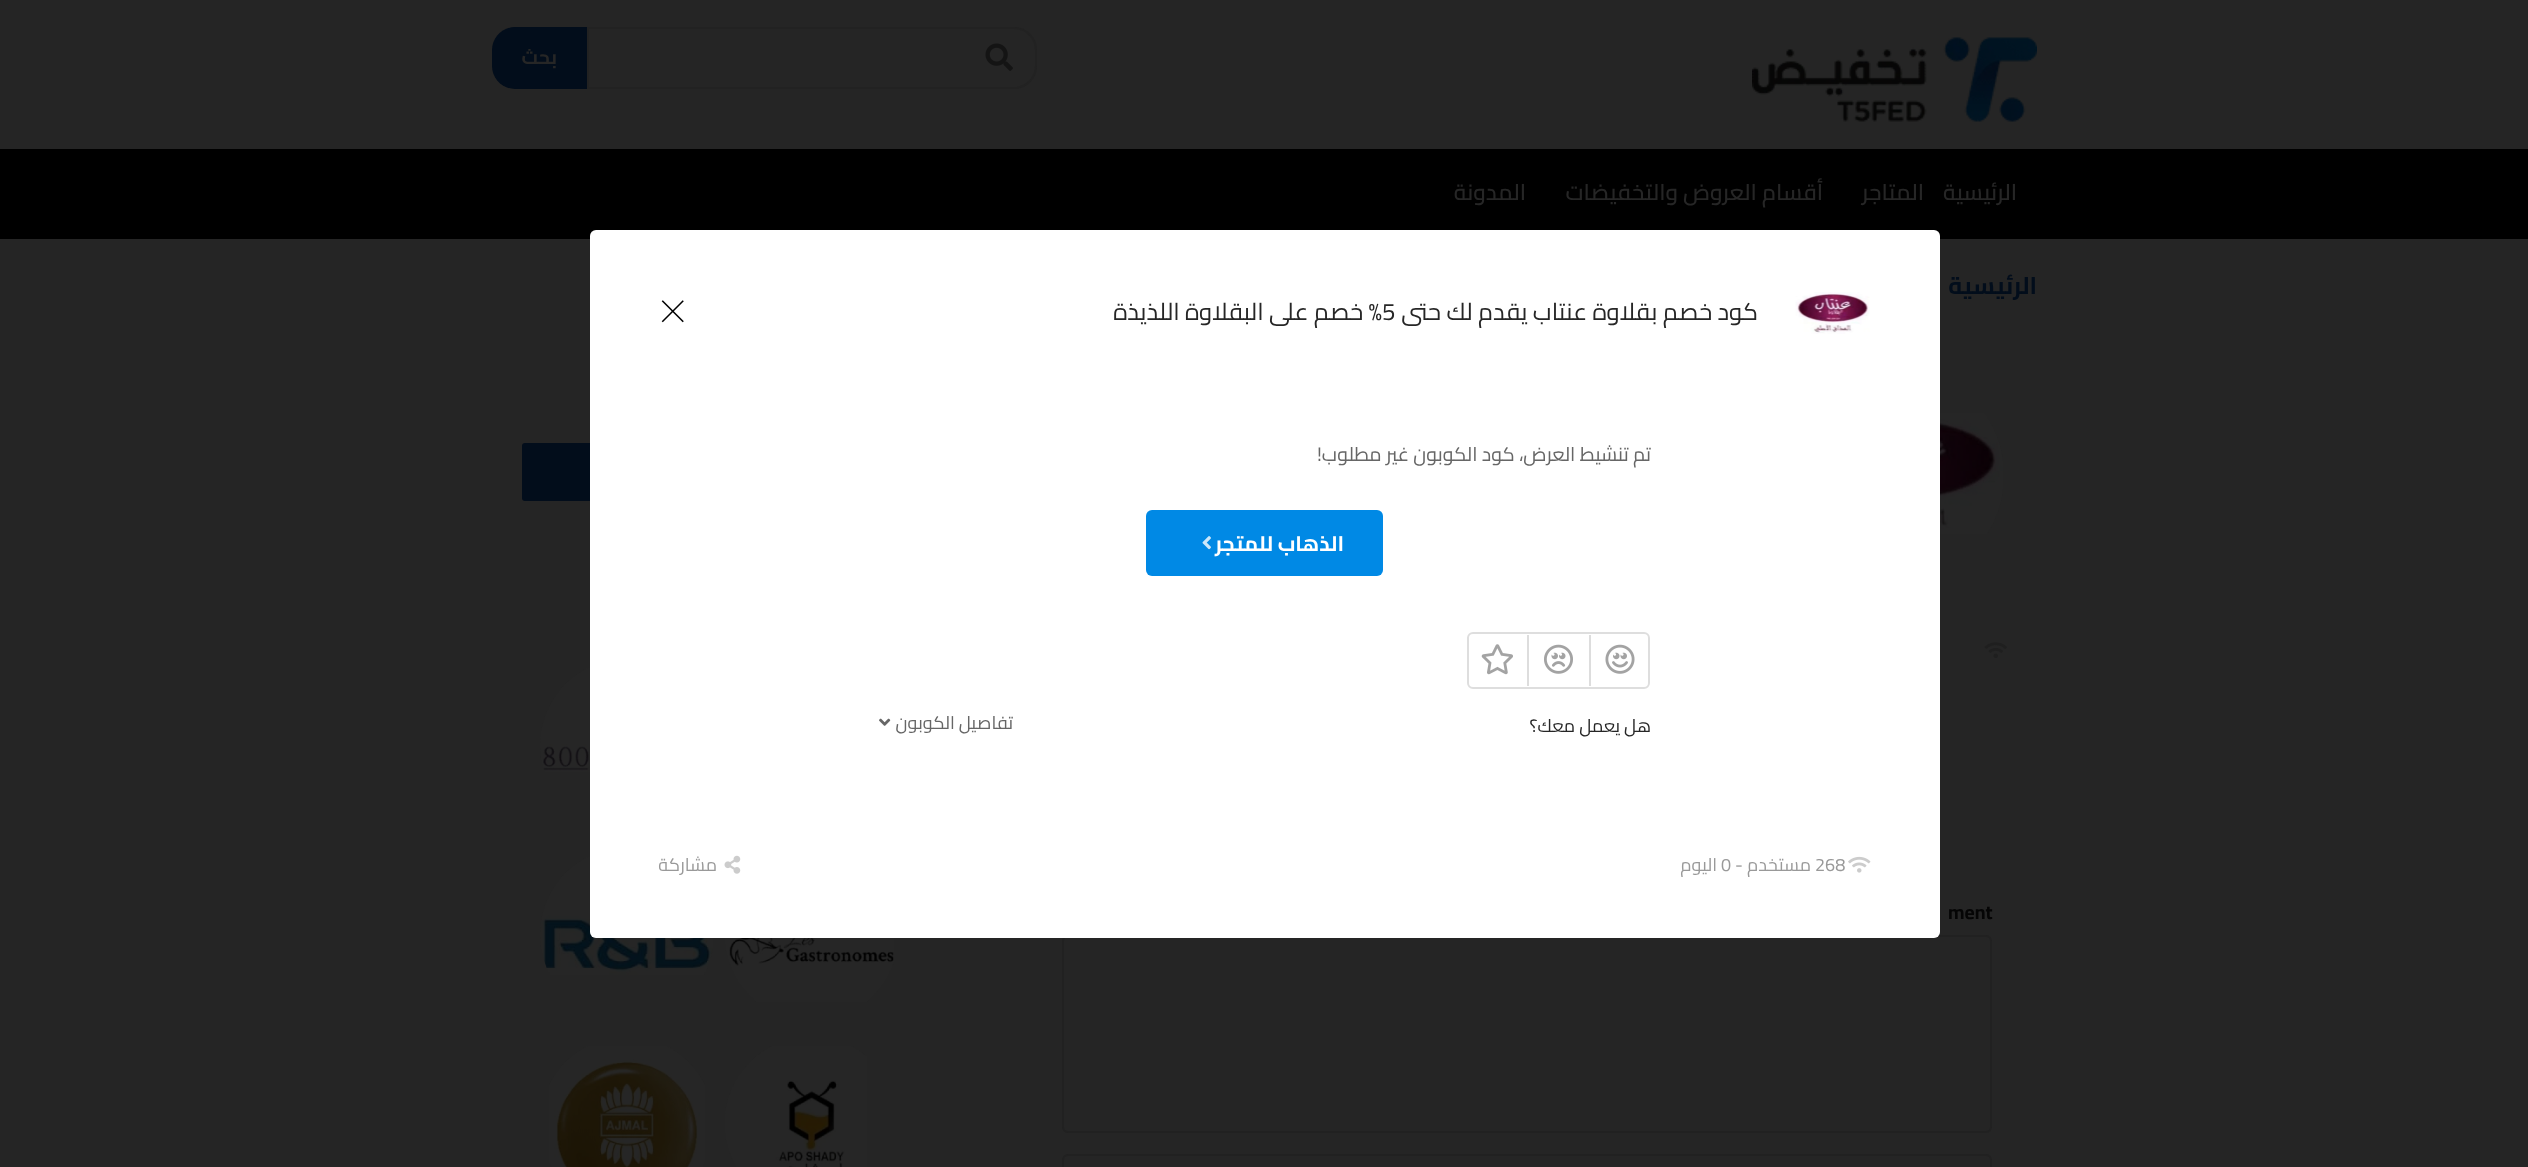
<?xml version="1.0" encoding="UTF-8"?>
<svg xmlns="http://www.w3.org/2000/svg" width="2528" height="1167">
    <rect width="100%" height="100%" fill="#252525"/>
    <image x="1752" y="37" width="285" height="85" href="img_01.png"/>
    <path d="M 588 28 H 1014 C 1026 28 1036 38 1036 50 V 66 C 1036 78 1026 88 1014 88 H 588 Z" fill="none" stroke="#222222" stroke-width="2"/>
    <image x="985" y="43" width="28" height="28" href="img_02.png"/>
    <path d="M 515 27 H 587 V 89 H 515 C 502.5 89 492 78.5 492 66 V 50 C 492 37.5 502.5 27 515 27 Z" fill="#020D1B"/>
    <text x="557" y="64" font-family="Cairo" font-size="19.5" font-weight="700" direction="rtl" fill="#262626">بحث</text>
    <rect x="0" y="149" width="2528" height="90" fill="#000000"/>
    <text x="2017" y="200" font-family="Cairo" font-size="22.5" font-weight="600" direction="rtl" fill="#262626">الرئيسية</text>
    <text x="1924" y="200" font-family="Cairo" font-size="22.5" font-weight="600" direction="rtl" fill="#262626">المتاجر</text>
    <text x="1823" y="200" font-family="Cairo" font-size="22.5" font-weight="600" direction="rtl" fill="#262626">أقسام العروض والتخفيضات</text>
    <text x="1526" y="200" font-family="Cairo" font-size="22.5" font-weight="600" direction="rtl" fill="#262626">المدونة</text>
    <text x="2037" y="294" font-family="Cairo" font-size="24" font-weight="700" direction="rtl" fill="#020D1B">الرئيسية</text>
    <image x="1940" y="413" width="63" height="121" href="img_03.png"/>
    <image x="1984" y="642" width="23" height="16" href="img_04.png"/>
    <text x="1948" y="919" font-family="Cairo" font-size="19.5" font-weight="700" fill="#050505">ment</text>
    <rect x="1063" y="936" width="928" height="196" rx="5" fill="none" stroke="#212121" stroke-width="2"/>
    <rect x="1063" y="1155" width="928" height="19" rx="5" fill="none" stroke="#212121" stroke-width="2"/>
    <rect x="522" y="443" width="390" height="58" rx="3" fill="#020D1B"/>
    <image x="540" y="668" width="50" height="104" href="img_05.png"/>
    <image x="725" y="938" width="169" height="64" href="img_06.png"/>
    <image x="540" y="857" width="173" height="118" href="img_07.png"/>
    <image x="725" y="1046" width="142" height="121" href="img_08.png"/>
    <image x="549" y="1046" width="156" height="121" href="img_09.png"/>
    <rect x="590" y="230" width="1350" height="708" rx="6" fill="#FFFFFF"/>
    <image x="1795" y="292" width="75" height="42" href="img_10.png"/>
    <text x="1758" y="320" font-family="Cairo" font-size="24" direction="rtl" fill="#262626">كود خصم بقلاوة عنتاب يقدم لك حتى</text>
    <text x="1382" y="320" font-family="Cairo" font-size="24" fill="#262626">5</text>
    <text x="1382" y="320" font-family="Cairo" font-size="24" direction="rtl" fill="#262626">% خصم على البقلاوة اللذيذة</text>
    <image x="661" y="300" width="23" height="23" href="img_11.png"/>
    <text x="1651" y="461" font-family="Cairo" font-size="19.5" direction="rtl" fill="#666666">تم تنشيط العرض، كود الكوبون غير مطلوب!</text>
    <rect x="1146" y="510" width="237" height="66" rx="6" fill="#0089E5"/>
    <text x="1344" y="551" font-family="Cairo" font-size="21" font-weight="700" direction="rtl" fill="#FFFFFF">الذهاب للمتجر</text>
    <image x="1202" y="536" width="9" height="14" href="img_12.png"/>
    <rect x="1468" y="633" width="181" height="55" rx="5" fill="none" stroke="#DEDEDE" stroke-width="2"/>
    <image x="1605" y="644" width="30" height="30" href="img_13.png"/>
    <rect x="1589" y="635" width="2" height="51" fill="#DDDDDD"/>
    <image x="1544" y="644" width="29" height="30" href="img_14.png"/>
    <rect x="1527" y="635" width="2" height="51" fill="#DDDDDD"/>
    <image x="1481" y="644" width="32" height="31" href="img_15.png"/>
    <text x="1651" y="732" font-family="Cairo" font-size="18" direction="rtl" fill="#262626">هل يعمل معك؟</text>
    <text x="1013" y="729" font-family="Cairo" font-size="18" direction="rtl" fill="#666666">تفاصيل الكوبون</text>
    <image x="879" y="718" width="12" height="8" href="img_16.png"/>
    <image x="1848" y="856" width="23" height="17" href="img_17.png"/>
    <text x="1815" y="871" font-family="Cairo" font-size="18" fill="#999999">268</text>
    <text x="1811" y="871" font-family="Cairo" font-size="18" direction="rtl" fill="#999999">مستخدم -</text>
    <text x="1721" y="871" font-family="Cairo" font-size="18" fill="#999999">0</text>
    <text x="1717" y="871" font-family="Cairo" font-size="18" direction="rtl" fill="#999999">اليوم</text>
    <image x="724" y="855" width="17" height="19" href="img_18.png"/>
    <text x="717" y="871" font-family="Cairo" font-size="18" direction="rtl" fill="#999999">مشاركة</text>
</svg>
